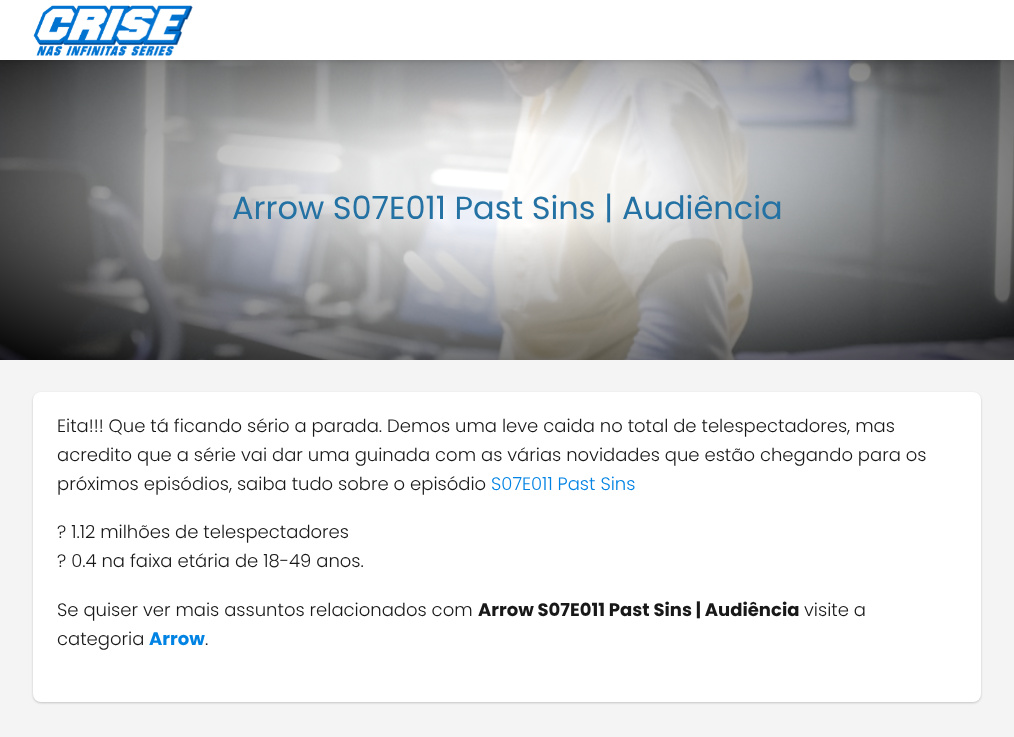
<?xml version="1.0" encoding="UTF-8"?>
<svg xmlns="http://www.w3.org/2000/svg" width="1014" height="737">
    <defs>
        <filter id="blur1" x="-50%" y="-200%" width="200%" height="500%"><feGaussianBlur stdDeviation="2"/></filter>
        <filter id="blur2" x="-50%" y="-200%" width="200%" height="500%"><feGaussianBlur stdDeviation="1"/></filter>
    </defs>
    <rect width="100%" height="100%" fill="#F4F4F4"/>
    <image x="0" y="60" width="1014" height="300" href="img_02.png"/>
    <rect x="0" y="2" width="1014" height="60" fill="#000000" fill-opacity="0.1" filter="url(#blur1)"/>
    <rect x="0" y="0" width="1014" height="60" fill="#FFFFFF"/>
    <image x="33" y="5" width="160" height="51" href="img_01.png"/>
    <text x="232" y="219" font-family="Poppins" font-size="32" fill="#2471A3">Arrow S07E011 Past Sins | Audiência</text>
    <rect x="33" y="393" width="948" height="310" rx="8" fill="#000000" fill-opacity="0.2" filter="url(#blur2)"/>
    <rect x="33" y="392" width="948" height="310" rx="8" fill="#FFFFFF"/>
    <text font-family="Poppins" font-size="18" font-weight="300" fill="#181818">
        <tspan x="57" y="432">Eita!!! Que tá ficando sério a parada. Demos uma leve caida no total de telespectadores, mas</tspan>
        <tspan x="57" y="461">acredito que a série vai dar uma guinada com as várias novidades que estão chegando para os</tspan>
        <tspan x="57" y="490">próximos episódios, saiba tudo sobre o episódio</tspan>
    </text>
    <text x="491" y="490" font-family="Poppins" font-size="18" font-weight="300" fill="#0183E4">S07E011 Past Sins</text>
    <text font-family="Poppins" font-size="18" font-weight="300" fill="#181818">
        <tspan x="57" y="538">? 1.12 milhões de telespectadores</tspan>
        <tspan x="57" y="567">? 0.4 na faixa etária de 18-49 anos.</tspan>
    </text>
    <text x="57" y="616" font-family="Poppins" font-size="18" font-weight="300" fill="#181818">Se quiser ver mais assuntos relacionados com</text>
    <text x="478" y="616" font-family="Poppins" font-size="18" font-weight="700" fill="#181818">Arrow S07E011 Past Sins | Audiência</text>
    <text x="804" y="616" font-family="Poppins" font-size="18" font-weight="300" fill="#181818">visite a</text>
    <text x="57" y="645" font-family="Poppins" font-size="18" font-weight="300" fill="#181818">categoria</text>
    <text x="149" y="645" font-family="Poppins" font-size="18" font-weight="700" fill="#0183E4">Arrow</text>
    <text x="205" y="645" font-family="Poppins" font-size="18" font-weight="300" fill="#181818">.</text>
</svg>
